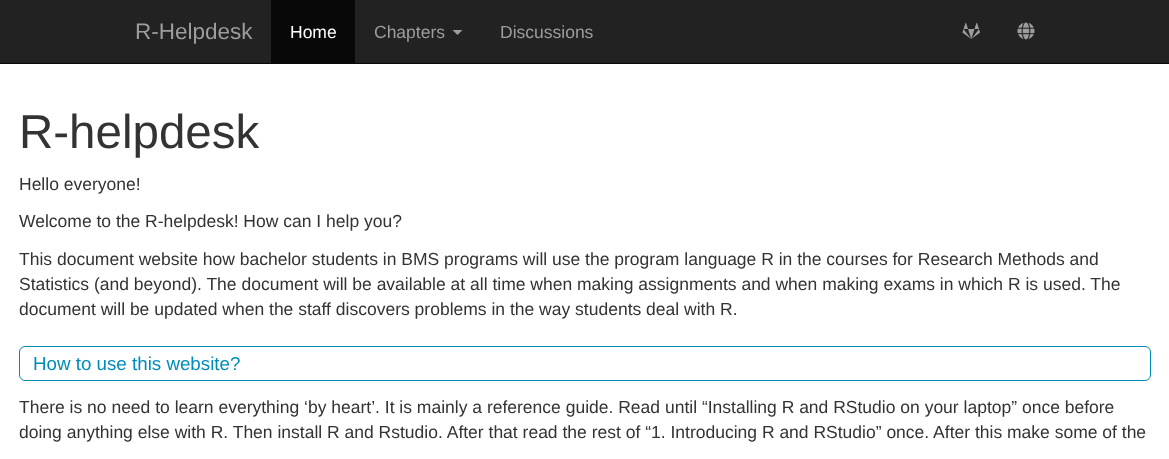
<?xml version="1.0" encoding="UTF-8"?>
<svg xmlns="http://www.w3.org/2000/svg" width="1169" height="459">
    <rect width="100%" height="100%" fill="#FFFFFF"/>
    <rect x="0" y="0" width="1169" height="63" fill="#222222"/>
    <rect x="0" y="63" width="1169" height="1" fill="#080808"/>
    <text x="135" y="39" font-family="Liberation Sans" font-size="22.5" fill="#9D9D9D">R-Helpdesk</text>
    <rect x="271" y="0" width="84" height="63" fill="#080808"/>
    <text x="290" y="38" font-family="Liberation Sans" font-size="17.5" fill="#FFFFFF">Home</text>
    <text x="374" y="38" font-family="Liberation Sans" font-size="17.5" fill="#9D9D9D">Chapters</text>
    <path d="M 452.5 30 H 462.5 L 457.5 35 Z" fill="#9D9D9D"/>
    <text x="500" y="38" font-family="Liberation Sans" font-size="17.5" fill="#9D9D9D">Discussions</text>
    <image x="962" y="22" width="18" height="17" href="img_01.png"/>
    <image x="1017" y="22" width="18" height="18" href="img_02.png"/>
    <text x="19" y="148" font-family="Liberation Sans" font-size="47.5" fill="#333333">R-helpdesk</text>
    <text x="19" y="190" font-family="Liberation Sans" font-size="17.5" fill="#333333">Hello everyone!</text>
    <text x="19" y="227" font-family="Liberation Sans" font-size="17.5" fill="#333333">Welcome to the R-helpdesk! How can I help you?</text>
    <text font-family="Liberation Sans" font-size="17.5" fill="#333333">
        <tspan x="19" y="265">This document website how bachelor students in BMS programs will use the program language R in the courses for Research Methods and</tspan>
        <tspan x="19" y="290">Statistics (and beyond). The document will be available at all time when making assignments and when making exams in which R is used. The</tspan>
        <tspan x="19" y="315">document will be updated when the staff discovers problems in the way students deal with R.</tspan>
    </text>
    <rect x="19.5" y="346.5" width="1131" height="34" rx="5.5" fill="none" stroke="#008CBA"/>
    <text x="33" y="370" font-family="Liberation Sans" font-size="18.75" fill="#008CBA">How to use this website?</text>
    <text font-family="Liberation Sans" font-size="17.5" fill="#333333">
        <tspan x="19" y="413">There is no need to learn everything ‘by heart’. It is mainly a reference guide. Read until “Installing R and RStudio on your laptop” once before</tspan>
        <tspan x="19" y="438">doing anything else with R. Then install R and Rstudio. After that read the rest of “1. Introducing R and RStudio” once. After this make some of the</tspan>
    </text>
</svg>
